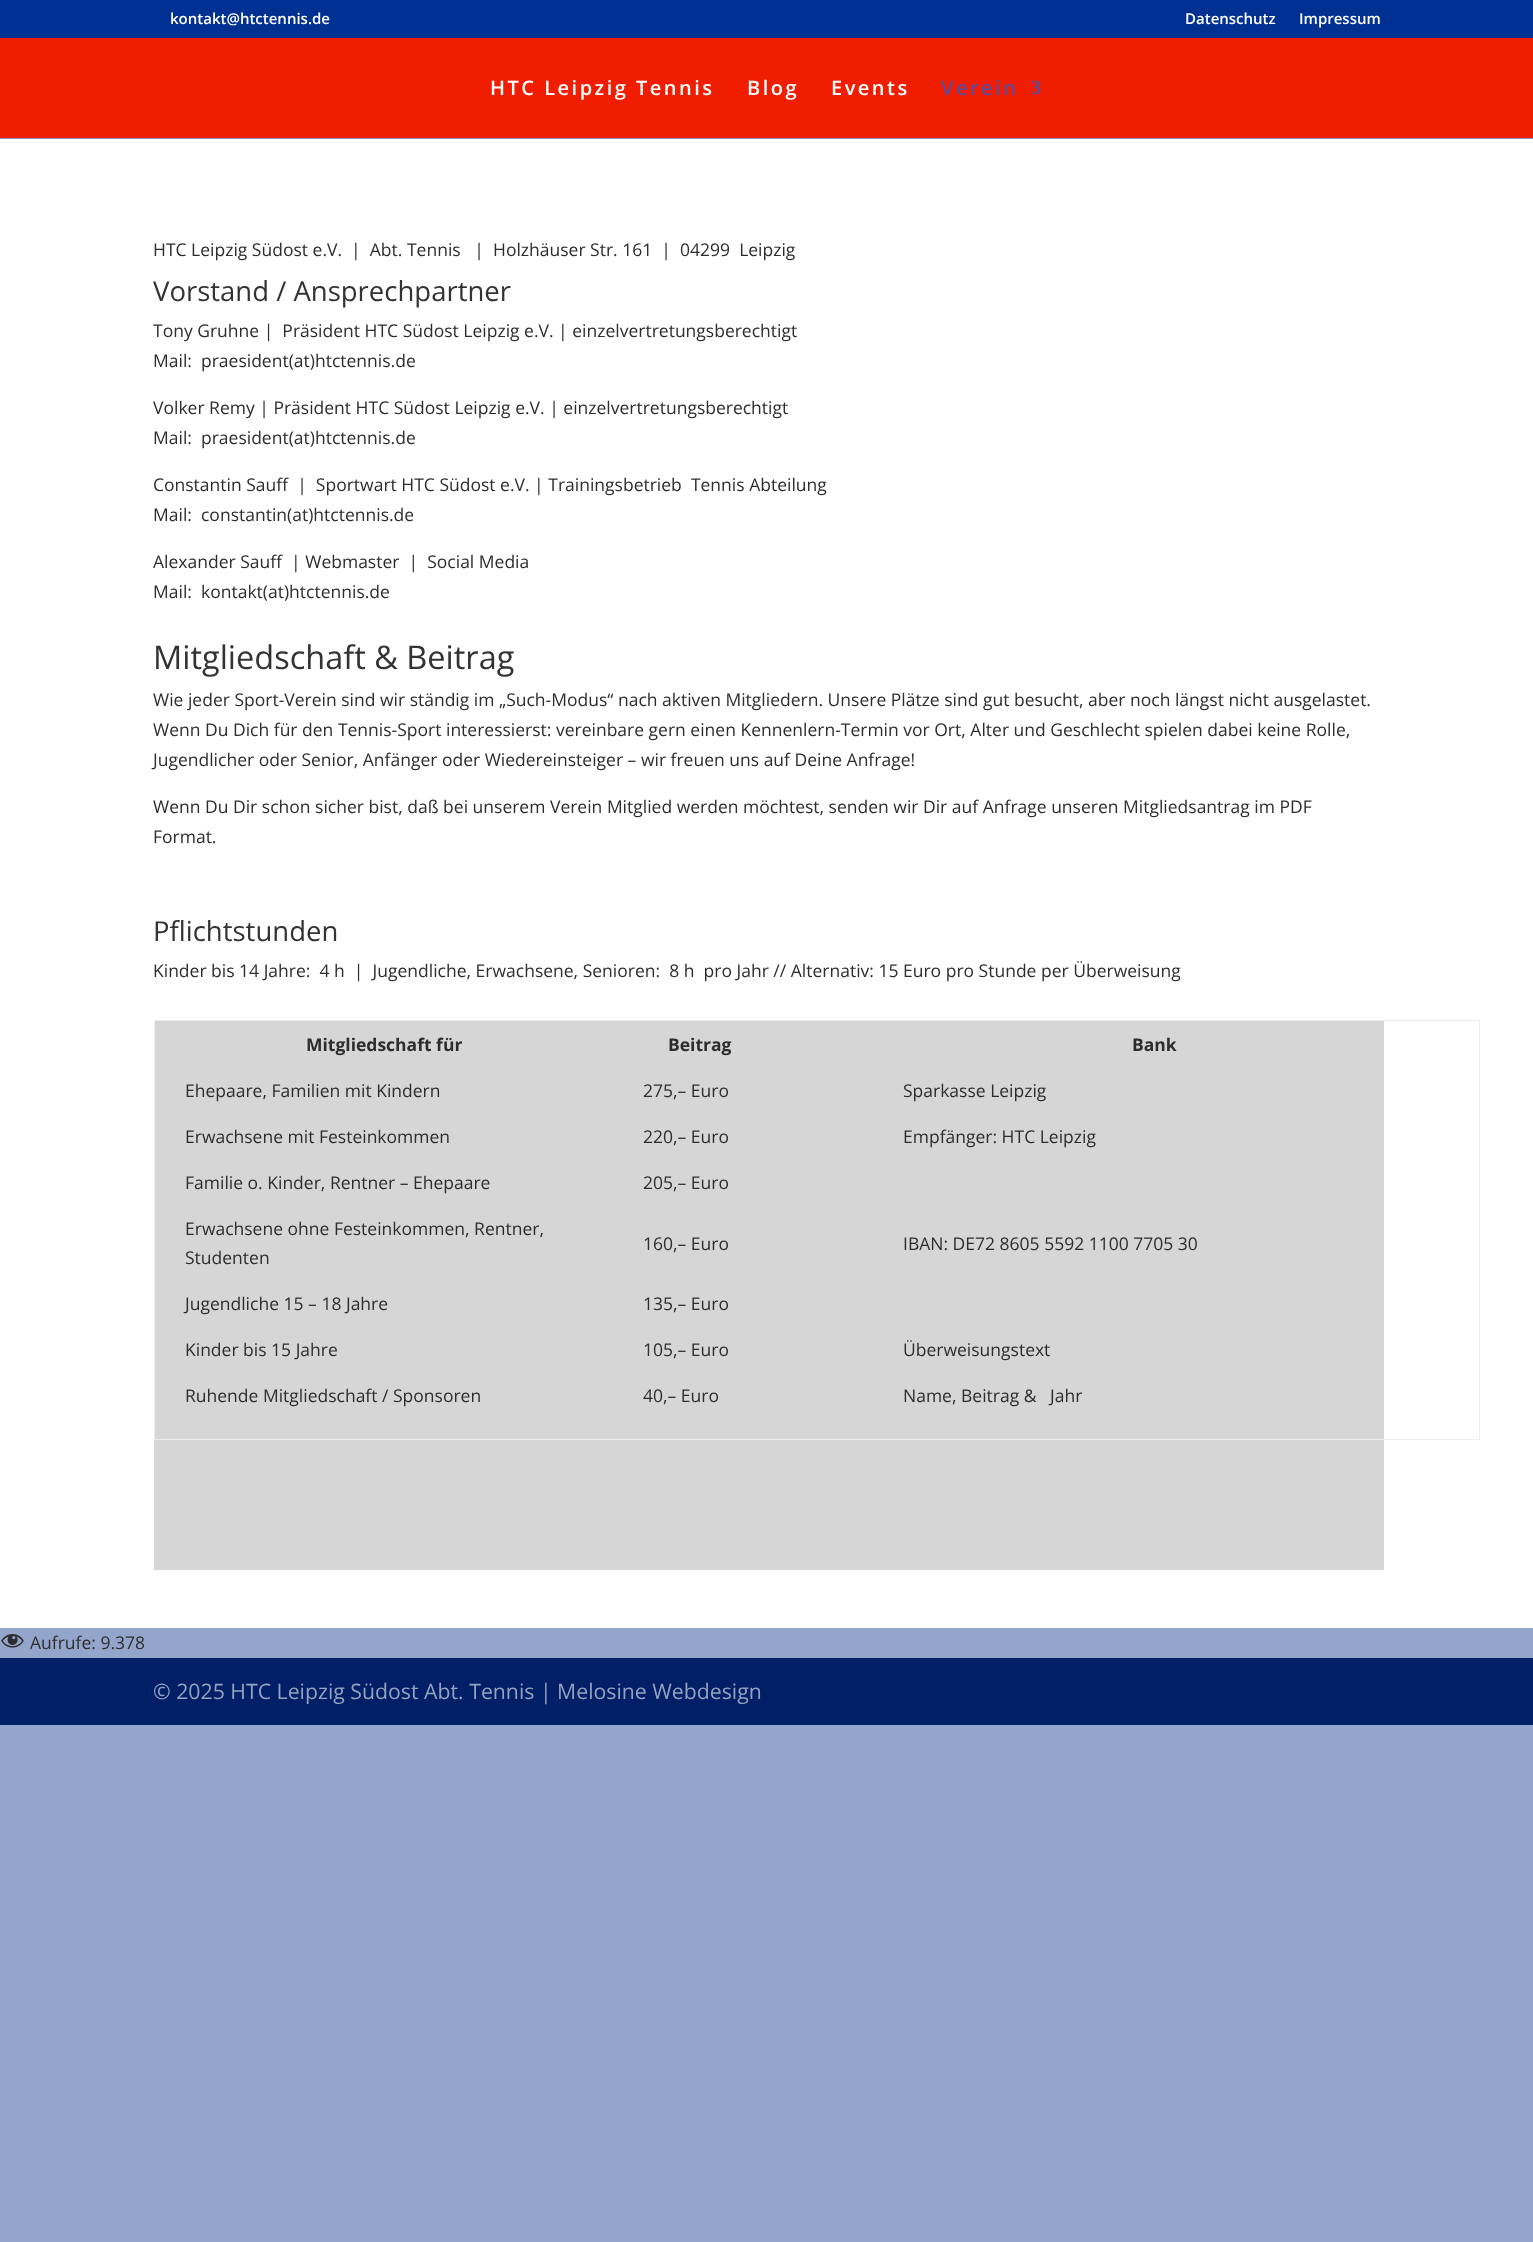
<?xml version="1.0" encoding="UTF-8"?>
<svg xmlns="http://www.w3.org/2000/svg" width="1533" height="2242">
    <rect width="100%" height="100%" fill="#94A5CC"/>
    <rect x="0" y="0" width="1533" height="38" fill="#003092"/>
    <text x="170" y="24" font-family="Open Sans" font-size="15" font-weight="600" fill="#FFFFFF">kontakt@htctennis.de</text>
    <text x="1185" y="24" font-family="Open Sans" font-size="15" font-weight="600" fill="#FFFFFF">Datenschutz</text>
    <text x="1299" y="24" font-family="Open Sans" font-size="15" font-weight="600" fill="#FFFFFF">Impressum</text>
    <path d="M 0 138 V 139 H 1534 V 39 V 138 Z" fill="#8595B8"/>
    <rect x="0" y="38" width="1533" height="100" fill="#F11D01"/>
    <text x="490" y="95" font-family="Open Sans" font-size="20" font-weight="600" letter-spacing="2.5" fill="#FFFFFF">HTC Leipzig Tennis</text>
    <text x="747" y="95" font-family="Open Sans" font-size="20" font-weight="600" letter-spacing="2.5" fill="#FFFFFF">Blog</text>
    <text x="831" y="95" font-family="Open Sans" font-size="20" font-weight="600" letter-spacing="2.5" fill="#FFFFFF">Events</text>
    <text x="941" y="95" font-family="Open Sans" font-size="20" font-weight="600" letter-spacing="2.5" fill="#594B9F">Verein</text>
    <text x="1031" y="94" font-family="Liberation Serif" font-size="20" font-weight="700" letter-spacing="2.5" fill="#594B9F">3</text>
    <rect x="0" y="139" width="1533" height="1489" fill="#FFFFFF"/>
    <text x="153" y="256" font-family="Open Sans" font-size="17.5" fill="#2D2D2D" xml:space="preserve">HTC Leipzig Südost e.V.  |  Abt. Tennis   |  Holzhäuser Str. 161  |  04299  Leipzig</text>
    <text x="153" y="301" font-family="Open Sans" font-size="27.5" fill="#333333">Vorstand / Ansprechpartner</text>
    <text font-family="Open Sans" font-size="17.5" fill="#2D2D2D" xml:space="preserve"><tspan x="153" y="337">Tony Gruhne |  Präsident HTC Südost Leipzig e.V. | einzelvertretungsberechtigt</tspan><tspan x="153" y="367">Mail:  praesident(at)htctennis.de</tspan></text>
    <text font-family="Open Sans" font-size="17.5" fill="#2D2D2D" xml:space="preserve"><tspan x="153" y="414">Volker Remy | Präsident HTC Südost Leipzig e.V. | einzelvertretungsberechtigt</tspan><tspan x="153" y="444">Mail:  praesident(at)htctennis.de</tspan></text>
    <text font-family="Open Sans" font-size="17.5" fill="#2D2D2D" xml:space="preserve"><tspan x="153" y="491">Constantin Sauff  |  Sportwart HTC Südost e.V. | Trainingsbetrieb  Tennis Abteilung</tspan><tspan x="153" y="521">Mail:  constantin(at)htctennis.de</tspan></text>
    <text font-family="Open Sans" font-size="17.5" fill="#2D2D2D" xml:space="preserve"><tspan x="153" y="568">Alexander Sauff  | Webmaster  |  Social Media</tspan><tspan x="153" y="598">Mail:  kontakt(at)htctennis.de</tspan></text>
    <text x="153" y="669" font-family="Open Sans" font-size="32.5" fill="#333333">Mitgliedschaft &amp; Beitrag</text>
    <text font-family="Open Sans" font-size="17.5" fill="#2D2D2D">
        <tspan x="153" y="706">Wie jeder Sport-Verein sind wir ständig im „Such-Modus“ nach aktiven Mitgliedern. Unsere Plätze sind gut besucht, aber noch längst nicht ausgelastet.</tspan>
        <tspan x="153" y="736">Wenn Du Dich für den Tennis-Sport interessierst: vereinbare gern einen Kennenlern-Termin vor Ort, Alter und Geschlecht spielen dabei keine Rolle,</tspan>
        <tspan x="153" y="766">Jugendlicher oder Senior, Anfänger oder Wiedereinsteiger – wir freuen uns auf Deine Anfrage!</tspan>
    </text>
    <text font-family="Open Sans" font-size="17.5" fill="#2D2D2D">
        <tspan x="153" y="813">Wenn Du Dir schon sicher bist, daß bei unserem Verein Mitglied werden möchtest, senden wir Dir auf Anfrage unseren Mitgliedsantrag im PDF</tspan>
        <tspan x="153" y="843">Format.</tspan>
    </text>
    <text x="153" y="941" font-family="Open Sans" font-size="27.5" fill="#333333">Pflichtstunden</text>
    <text x="153" y="977" font-family="Open Sans" font-size="17.5" fill="#2D2D2D" xml:space="preserve">Kinder bis 14 Jahre:  4 h  |  Jugendliche, Erwachsene, Senioren:  8 h  pro Jahr // Alternativ: 15 Euro pro Stunde per Überweisung</text>
    <rect x="154" y="1021" width="1230" height="549" fill="#D6D6D6"/>
    <rect x="154.5" y="1020.5" width="1325" height="419" fill="none" stroke="#EEEEEE"/>
    <text x="306" y="1051" font-family="Open Sans" font-size="17.5" font-weight="700" fill="#2D2D2D">Mitgliedschaft für</text>
    <text x="668" y="1051" font-family="Open Sans" font-size="17.5" font-weight="700" fill="#2D2D2D">Beitrag</text>
    <text x="1132" y="1051" font-family="Open Sans" font-size="17.5" font-weight="700" fill="#2D2D2D">Bank</text>
    <text x="185" y="1097" font-family="Open Sans" font-size="17.5" fill="#2D2D2D">Ehepaare, Familien mit Kindern</text>
    <text x="643" y="1097" font-family="Open Sans" font-size="17.5" fill="#2D2D2D">275,– Euro</text>
    <text x="903" y="1097" font-family="Open Sans" font-size="17.5" fill="#2D2D2D">Sparkasse Leipzig</text>
    <text x="185" y="1143" font-family="Open Sans" font-size="17.5" fill="#2D2D2D">Erwachsene mit Festeinkommen</text>
    <text x="643" y="1143" font-family="Open Sans" font-size="17.5" fill="#2D2D2D">220,– Euro</text>
    <text x="903" y="1143" font-family="Open Sans" font-size="17.5" fill="#2D2D2D">Empfänger: HTC Leipzig</text>
    <text x="185" y="1189" font-family="Open Sans" font-size="17.5" fill="#2D2D2D">Familie o. Kinder, Rentner – Ehepaare</text>
    <text x="643" y="1189" font-family="Open Sans" font-size="17.5" fill="#2D2D2D">205,– Euro</text>
    <text font-family="Open Sans" font-size="17.5" fill="#2D2D2D">
        <tspan x="185" y="1235">Erwachsene ohne Festeinkommen, Rentner,</tspan>
        <tspan x="185" y="1264">Studenten</tspan>
    </text>
    <text x="643" y="1250" font-family="Open Sans" font-size="17.5" fill="#2D2D2D">160,– Euro</text>
    <text x="903" y="1250" font-family="Open Sans" font-size="17.5" fill="#2D2D2D">IBAN: DE72 8605 5592 1100 7705 30</text>
    <text x="185" y="1310" font-family="Open Sans" font-size="17.5" fill="#2D2D2D">Jugendliche 15 – 18 Jahre</text>
    <text x="643" y="1310" font-family="Open Sans" font-size="17.5" fill="#2D2D2D">135,– Euro</text>
    <text x="185" y="1356" font-family="Open Sans" font-size="17.5" fill="#2D2D2D">Kinder bis 15 Jahre</text>
    <text x="643" y="1356" font-family="Open Sans" font-size="17.5" fill="#2D2D2D">105,– Euro</text>
    <text x="903" y="1356" font-family="Open Sans" font-size="17.5" fill="#2D2D2D">Überweisungstext</text>
    <text x="185" y="1402" font-family="Open Sans" font-size="17.5" fill="#2D2D2D">Ruhende Mitgliedschaft / Sponsoren</text>
    <text x="643" y="1402" font-family="Open Sans" font-size="17.5" fill="#2D2D2D">40,– Euro</text>
    <text x="903" y="1402" font-family="Open Sans" font-size="17.5" fill="#2D2D2D" xml:space="preserve">Name, Beitrag &amp;   Jahr</text>
    <image x="1" y="1634" width="23" height="14" href="img_01.png"/>
    <text x="30" y="1649" font-family="Open Sans" font-size="17.5" fill="#2D2D2D">Aufrufe: 9.378</text>
    <rect x="0" y="1658" width="1533" height="67" fill="#011F66"/>
    <text x="153" y="1699" font-family="Open Sans" font-size="21.25" fill="#94A1BF">© 2025 HTC Leipzig Südost Abt. Tennis | Melosine Webdesign</text>
</svg>
